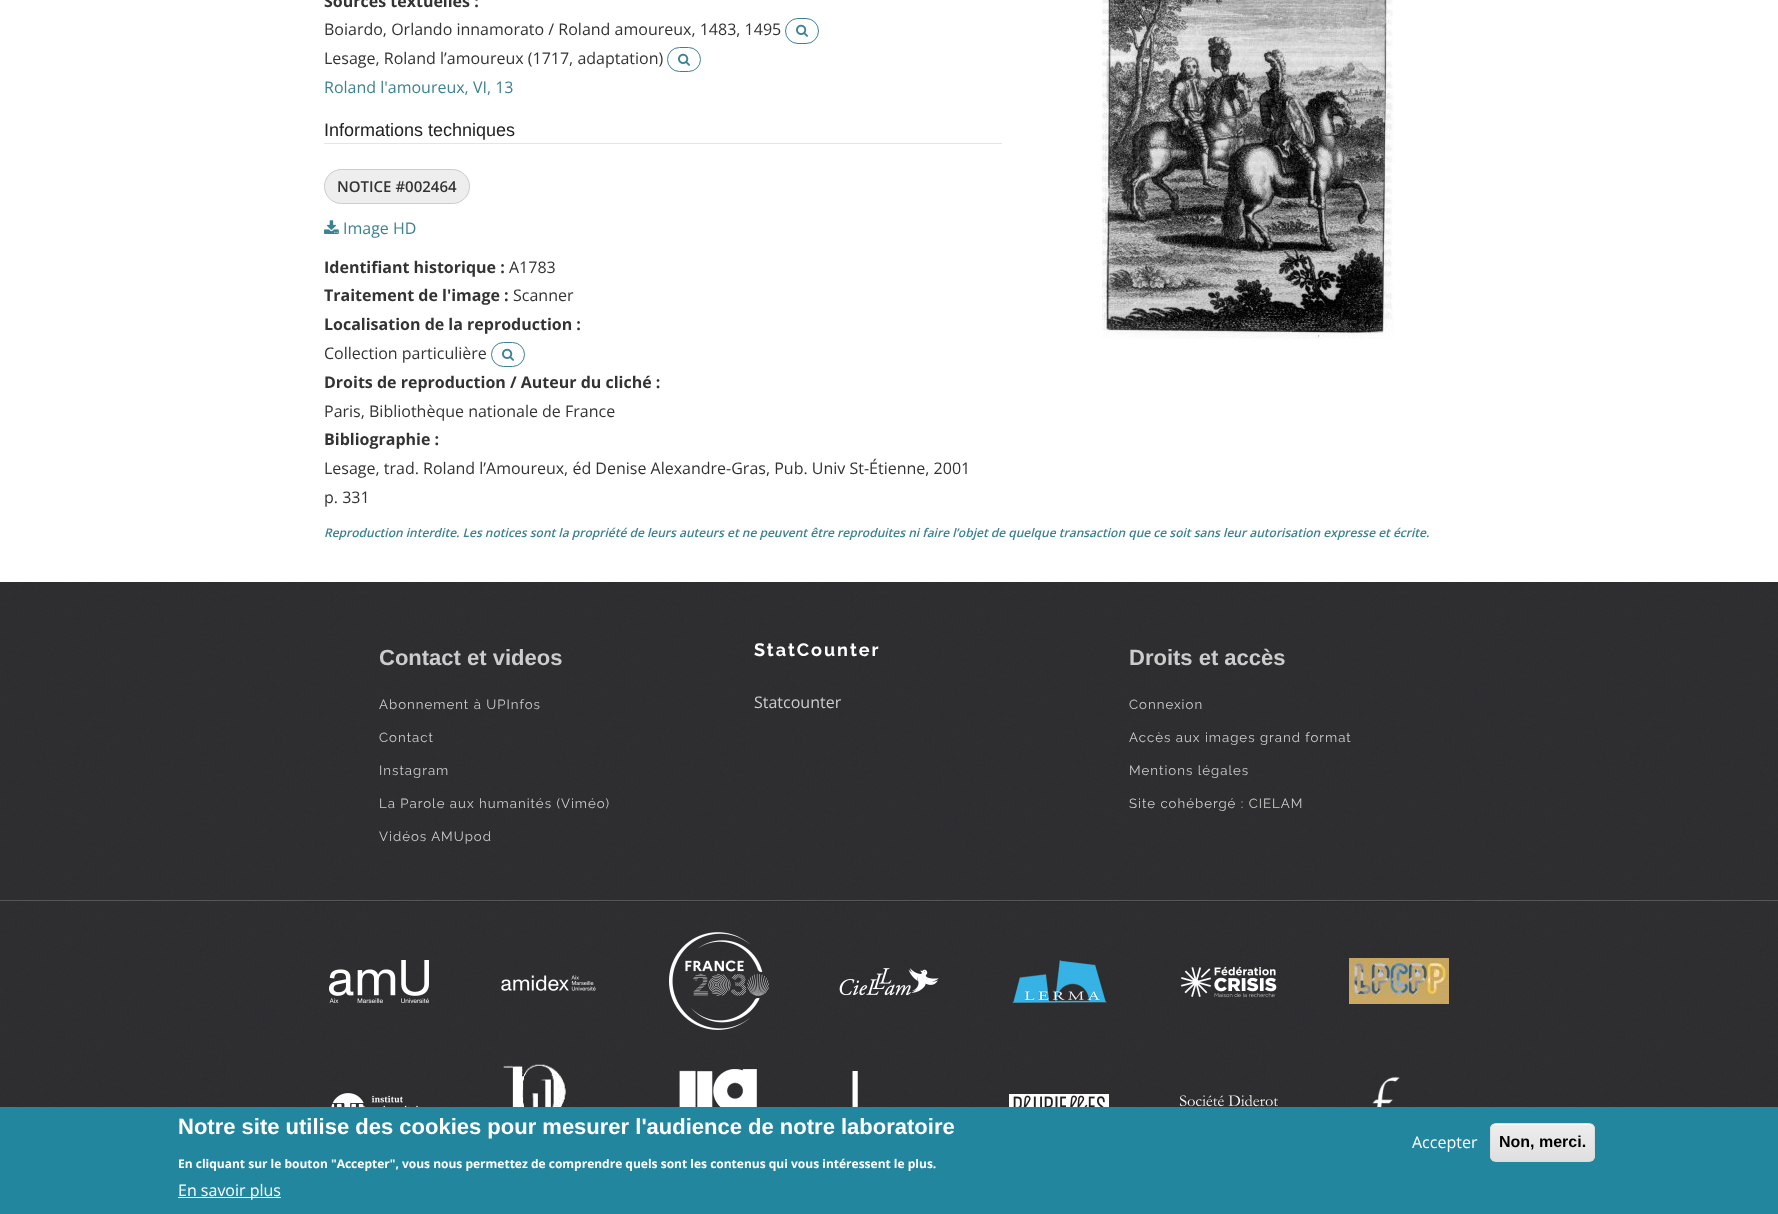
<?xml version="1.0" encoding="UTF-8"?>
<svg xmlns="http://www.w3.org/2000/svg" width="1778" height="1214">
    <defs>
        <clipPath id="clip1"><rect x="1490" y="1123" width="105" height="39" rx="6"/></clipPath>
        <linearGradient id="g1" gradientUnits="userSpaceOnUse" x1="1543" y1="1124" x2="1543" y2="1161"><stop offset="0.05" stop-color="#EDEDED"/><stop offset="1" stop-color="#DFDFDF"/></linearGradient>
    </defs>
    <rect width="100%" height="100%" fill="#FFFFFF"/>
    <text x="324" y="7" font-family="Open Sans" font-size="16" font-weight="700" fill="#333333">Sources textuelles :</text>
    <text x="324" y="35" font-family="Open Sans" font-size="16" fill="#333333">Boiardo, Orlando innamorato / Roland amoureux, 1483, 1495</text>
    <rect x="785.5" y="18.5" width="33" height="25" rx="12.5" fill="none" stroke="#3D8291"/>
    <image x="796" y="24" width="12" height="13" href="img_01.png"/>
    <text x="324" y="64" font-family="Open Sans" font-size="16" fill="#333333">Lesage, Roland l’amoureux (1717, adaptation)</text>
    <rect x="667.5" y="47.5" width="33" height="24" rx="12" fill="none" stroke="#3D8291"/>
    <image x="678" y="53" width="12" height="13" href="img_01.png"/>
    <text x="324" y="93" font-family="Open Sans" font-size="16" fill="#3D8291">Roland l'amoureux, VI, 13</text>
    <rect x="324" y="143" width="678" height="1" fill="#E5E5E5"/>
    <text x="324" y="136" font-family="Liberation Sans" font-size="18" fill="#222222">Informations techniques</text>
    <rect x="324.5" y="169.5" width="145" height="34" rx="17" fill="#EEEEEE" stroke="#CCCCCC"/>
    <text x="337" y="192" font-family="Open Sans" font-size="15" font-weight="600" fill="#333333">NOTICE #002464</text>
    <image x="324" y="220" width="15" height="14" href="img_02.png"/>
    <text x="343" y="234" font-family="Open Sans" font-size="16" fill="#3D8291">Image HD</text>
    <text x="324" y="273" font-family="Open Sans" font-size="16" font-weight="700" fill="#333333">Identifiant historique :</text>
    <text x="509" y="273" font-family="Open Sans" font-size="16" fill="#333333">A1783</text>
    <text x="324" y="301" font-family="Open Sans" font-size="16" font-weight="700" fill="#333333">Traitement de l'image :</text>
    <text x="513" y="301" font-family="Open Sans" font-size="16" fill="#333333">Scanner</text>
    <text x="324" y="330" font-family="Open Sans" font-size="16" font-weight="700" fill="#333333">Localisation de la reproduction :</text>
    <text x="324" y="359" font-family="Open Sans" font-size="16" fill="#333333">Collection particulière</text>
    <rect x="491.5" y="342.5" width="33" height="24" rx="12" fill="none" stroke="#3D8291"/>
    <image x="502" y="348" width="12" height="13" href="img_01.png"/>
    <text x="324" y="388" font-family="Open Sans" font-size="16" font-weight="700" fill="#333333">Droits de reproduction / Auteur du cliché :</text>
    <text x="324" y="417" font-family="Open Sans" font-size="16" fill="#333333">Paris, Bibliothèque nationale de France</text>
    <text x="324" y="445" font-family="Open Sans" font-size="16" font-weight="700" fill="#333333">Bibliographie :</text>
    <text font-family="Open Sans" font-size="16" fill="#333333">
        <tspan x="324" y="474">Lesage, trad. Roland l’Amoureux, éd Denise Alexandre-Gras, Pub. Univ St-Étienne, 2001</tspan>
        <tspan x="324" y="503">p. 331</tspan>
    </text>
    <image x="1102" y="0" width="292" height="339" href="img_03.png"/>
    <text x="324" y="537" font-family="Open Sans" font-size="12" font-weight="600" font-style="italic" fill="#3D8291">Reproduction interdite. Les notices sont la propriété de leurs auteurs et ne peuvent être reproduites ni faire l’objet de quelque transaction que ce soit sans leur autorisation expresse et écrite.</text>
    <image x="0" y="582" width="1778" height="318" href="img_04.png"/>
    <text x="379" y="665" font-family="Liberation Sans" font-size="22" font-weight="700" fill="#CCCCCC">Contact et videos</text>
    <text x="379" y="709" font-family="Raleway" font-size="13.25" letter-spacing="1" fill="#CCCCCC">Abonnement à UPInfos</text>
    <text x="379" y="742" font-family="Raleway" font-size="13.25" letter-spacing="1" fill="#CCCCCC">Contact</text>
    <text x="379" y="775" font-family="Raleway" font-size="13.25" letter-spacing="1" fill="#CCCCCC">Instagram</text>
    <text x="379" y="808" font-family="Raleway" font-size="13.25" letter-spacing="1" fill="#CCCCCC">La Parole aux humanités (Viméo)</text>
    <text x="379" y="841" font-family="Raleway" font-size="13.25" letter-spacing="1" fill="#CCCCCC">Vidéos AMUpod</text>
    <text x="754" y="656" font-family="Raleway" font-size="18" font-weight="700" letter-spacing="2" fill="#FFFFFF">StatCounter</text>
    <text x="754" y="708" font-family="Open Sans" font-size="16" fill="#CCCCCC">Statcounter</text>
    <text x="1129" y="665" font-family="Liberation Sans" font-size="22" font-weight="700" fill="#CCCCCC">Droits et accès</text>
    <text x="1129" y="709" font-family="Raleway" font-size="13.25" letter-spacing="1" fill="#CCCCCC">Connexion</text>
    <text x="1129" y="742" font-family="Raleway" font-size="13.25" letter-spacing="1" fill="#CCCCCC">Accès aux images grand format</text>
    <text x="1129" y="775" font-family="Raleway" font-size="13.25" letter-spacing="1" fill="#CCCCCC">Mentions légales</text>
    <text x="1129" y="808" font-family="Raleway" font-size="13.25" letter-spacing="1" fill="#CCCCCC">Site cohébergé : CIELAM</text>
    <image x="0" y="900" width="1778" height="207" href="img_05.png"/>
    <rect x="0" y="900" width="1778" height="1" fill="#FFFFFF" fill-opacity="0.2"/>
    <rect x="304" y="901" width="1170" height="1" fill="#000000" fill-opacity="0.1"/>
    <image x="329" y="960" width="100" height="43" href="img_06.png"/>
    <image x="501" y="975" width="95" height="16" href="img_07.png"/>
    <image x="669" y="932" width="100" height="98" href="img_08.png"/>
    <image x="839" y="968" width="100" height="28" href="img_09.png"/>
    <image x="1012" y="960" width="95" height="43" href="img_10.png"/>
    <image x="1181" y="966" width="96" height="32" href="img_11.png"/>
    <image x="1349" y="958" width="100" height="46" href="img_12.png"/>
    <image x="331" y="1093" width="87" height="14" href="img_13.png"/>
    <image x="503" y="1064" width="63" height="43" href="img_14.png"/>
    <image x="679" y="1069" width="78" height="38" href="img_15.png"/>
    <image x="852" y="1071" width="6" height="36" href="img_16.png"/>
    <image x="1009" y="1094" width="100" height="13" href="img_17.png"/>
    <image x="1179" y="1095" width="100" height="12" href="img_18.png"/>
    <image x="1372" y="1076" width="28" height="31" href="img_19.png"/>
    <rect x="0" y="1107" width="1778" height="107" fill="#22879E"/>
    <text x="178" y="1134" font-family="Liberation Sans" font-size="22" font-weight="700" fill="#FFFFFF">Notre site utilise des cookies pour mesurer l'audience de notre laboratoire</text>
    <text x="178" y="1168" font-family="Open Sans" font-size="12" font-weight="700" fill="#FFFFFF">En cliquant sur le bouton "Accepter", vous nous permettez de comprendre quels sont les contenus qui vous intéressent le plus.</text>
    <rect x="178" y="1197" width="103" height="1" fill="#FFFFFF"/>
    <text x="178" y="1196" font-family="Open Sans" font-size="16" fill="#FFFFFF">En savoir plus</text>
    <text x="1412" y="1148" font-family="Open Sans" font-size="16" fill="#FFFFFF">Accepter</text>
    <g clip-path="url(#clip1)">
        <rect x="1490" y="1124" width="105" height="37" fill="url(#g1)"/>
    </g>
    <path d="M 1496 1125 H 1589 C 1592 1125 1594 1127 1594 1130 C 1594 1120 1579 1124 1574 1124 H 1512 C 1506 1124 1491 1120 1491 1130 C 1491 1127 1493 1125 1496 1125 Z" fill="#FFFFFF"/>
    <rect x="1490.5" y="1123.5" width="104" height="38" rx="5.5" fill="none" stroke="#DCDCDC"/>
    <text x="1499" y="1147" font-family="Liberation Sans" font-size="16" font-weight="700" fill="#000000">Non, merci.</text>
</svg>
